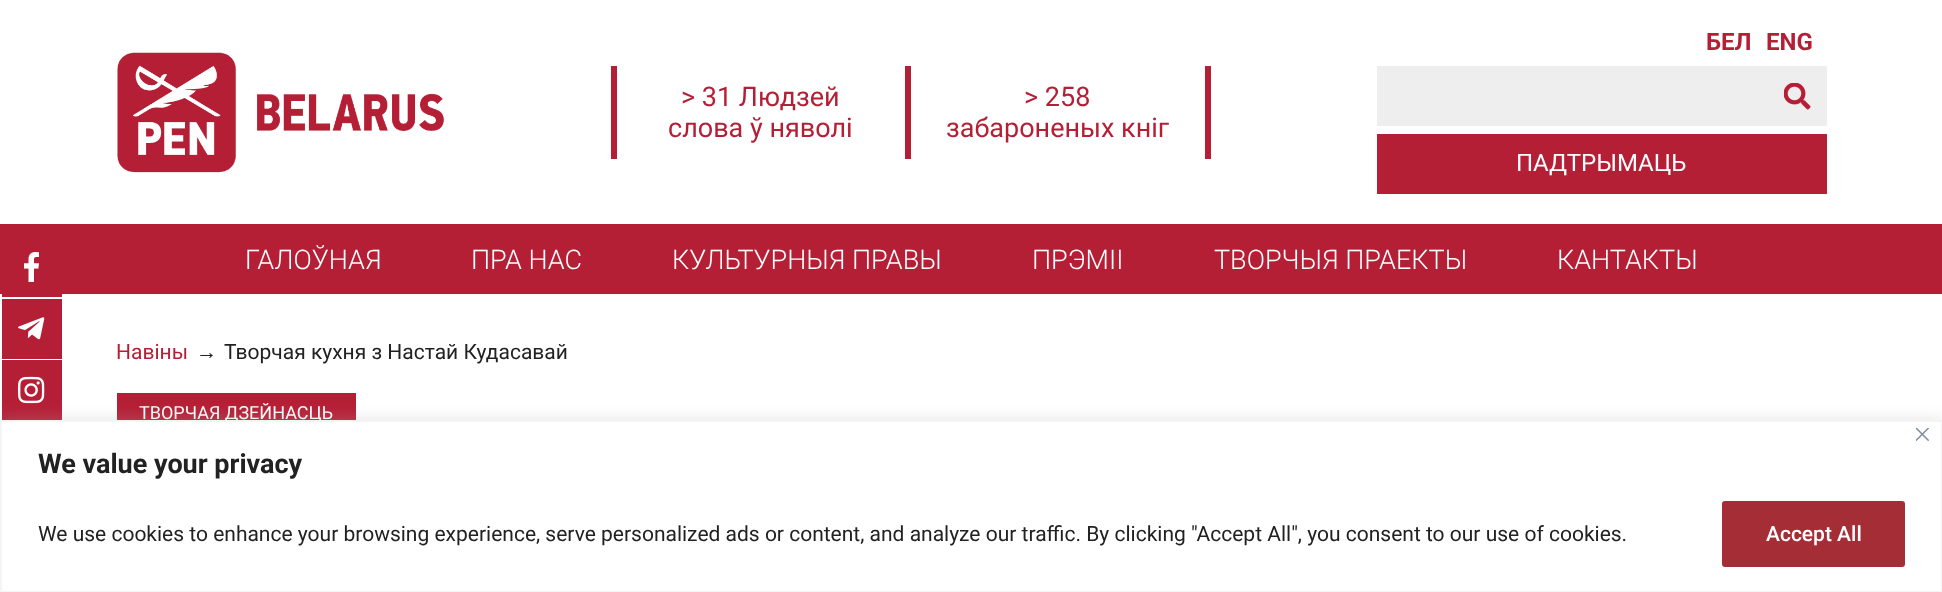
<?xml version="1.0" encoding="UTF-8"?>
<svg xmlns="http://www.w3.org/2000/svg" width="1942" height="592">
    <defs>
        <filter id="blur1" x="-50%" y="-200%" width="200%" height="500%"><feGaussianBlur stdDeviation="7.5"/></filter>
    </defs>
    <rect width="100%" height="100%" fill="#FFFFFF"/>
    <rect x="2" y="294" width="60" height="3" fill="#B51F36"/>
    <rect x="0" y="224" width="1942" height="70" fill="#B51F36"/>
    <image x="24" y="252" width="15" height="30" href="img_01.png"/>
    <rect x="2" y="299" width="60" height="60" fill="#B51F36"/>
    <image x="18" y="317" width="27" height="23" href="img_02.png"/>
    <rect x="2" y="360" width="60" height="60" fill="#B51F36"/>
    <image x="18" y="376" width="27" height="28" href="img_03.png"/>
    <image x="117" y="52" width="327" height="121" href="img_04.png"/>
    <rect x="905" y="66" width="6" height="93" fill="#B51F36"/>
    <rect x="611" y="66" width="6" height="93" fill="#B51F36"/>
    <text x="681" y="106" font-family="Roboto" font-size="27" fill="#B51F36">&gt; 31 Людзей</text>
    <text x="668" y="137" font-family="Roboto" font-size="27" fill="#B51F36">слова ў няволі</text>
    <rect x="1205" y="66" width="6" height="93" fill="#B51F36"/>
    <text x="1024" y="106" font-family="Roboto" font-size="27" fill="#B51F36">&gt; 258</text>
    <text x="946" y="137" font-family="Roboto" font-size="27" fill="#B51F36">забароненых кніг</text>
    <text x="1706" y="50" font-family="Roboto" font-size="24" font-weight="700" fill="#B51F36">БЕЛ</text>
    <text x="1766" y="50" font-family="Roboto" font-size="24" font-weight="700" fill="#B51F36">ENG</text>
    <rect x="1377" y="66" width="450" height="60" fill="#EEEEEE"/>
    <image x="1784" y="83" width="27" height="27" href="img_05.png"/>
    <rect x="1377" y="134" width="450" height="60" fill="#B51F36"/>
    <text x="1516" y="171" font-family="Roboto" font-size="24" fill="#FFFFFF">ПАДТРЫМАЦЬ</text>
    <text x="245" y="269" font-family="Roboto" font-size="27" font-weight="300" fill="#FFFFFF">ГАЛОЎНАЯ</text>
    <text x="471" y="269" font-family="Roboto" font-size="27" font-weight="300" fill="#FFFFFF">ПРА НАС</text>
    <text x="672" y="269" font-family="Roboto" font-size="27" font-weight="300" fill="#FFFFFF">КУЛЬТУРНЫЯ ПРАВЫ</text>
    <text x="1032" y="269" font-family="Roboto" font-size="27" font-weight="300" fill="#FFFFFF">ПРЭМІІ</text>
    <text x="1214" y="269" font-family="Roboto" font-size="27" font-weight="300" fill="#FFFFFF">ТВОРЧЫЯ ПРАЕКТЫ</text>
    <text x="1557" y="269" font-family="Roboto" font-size="27" font-weight="300" fill="#FFFFFF">КАНТАКТЫ</text>
    <text x="116" y="359" font-family="Roboto" font-size="21" fill="#B51F36">Навiны</text>
    <text x="196" y="359" font-family="Liberation Sans" font-size="21" fill="#222222">→</text>
    <text x="224" y="359" font-family="Roboto" font-size="21" fill="#222222">Творчая кухня з Настай Кудасавай</text>
    <rect x="117" y="393" width="239" height="27" fill="#B51F36"/>
    <text x="139" y="419" font-family="Roboto" font-size="18" fill="#FFFFFF">ТВОРЧАЯ ДЗЕЙНАСЦЬ</text>
    <rect x="0" y="419" width="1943" height="172" fill="#ACABAB" fill-opacity="0.3" filter="url(#blur1)"/>
    <rect x="1" y="421" width="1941" height="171" fill="#FFFFFF" stroke="#F4F4F4" stroke-width="2"/>
    <image x="1916" y="428" width="13" height="13" href="img_06.png"/>
    <text x="38" y="473" font-family="Roboto" font-size="27" font-weight="700" fill="#222222">We value your privacy</text>
    <text x="38" y="541" font-family="Roboto" font-size="21" fill="#222222">We use cookies to enhance your browsing experience, serve personalized ads or content, and analyze our traffic. By clicking "Accept All", you consent to our use of cookies.</text>
    <rect x="1723.5" y="502.5" width="180" height="63" rx="1.5" fill="#A52D36" stroke="#A52D36" stroke-width="3"/>
    <text x="1766" y="541" font-family="Roboto" font-size="21" font-weight="500" fill="#FFFFFF">Accept All</text>
</svg>
